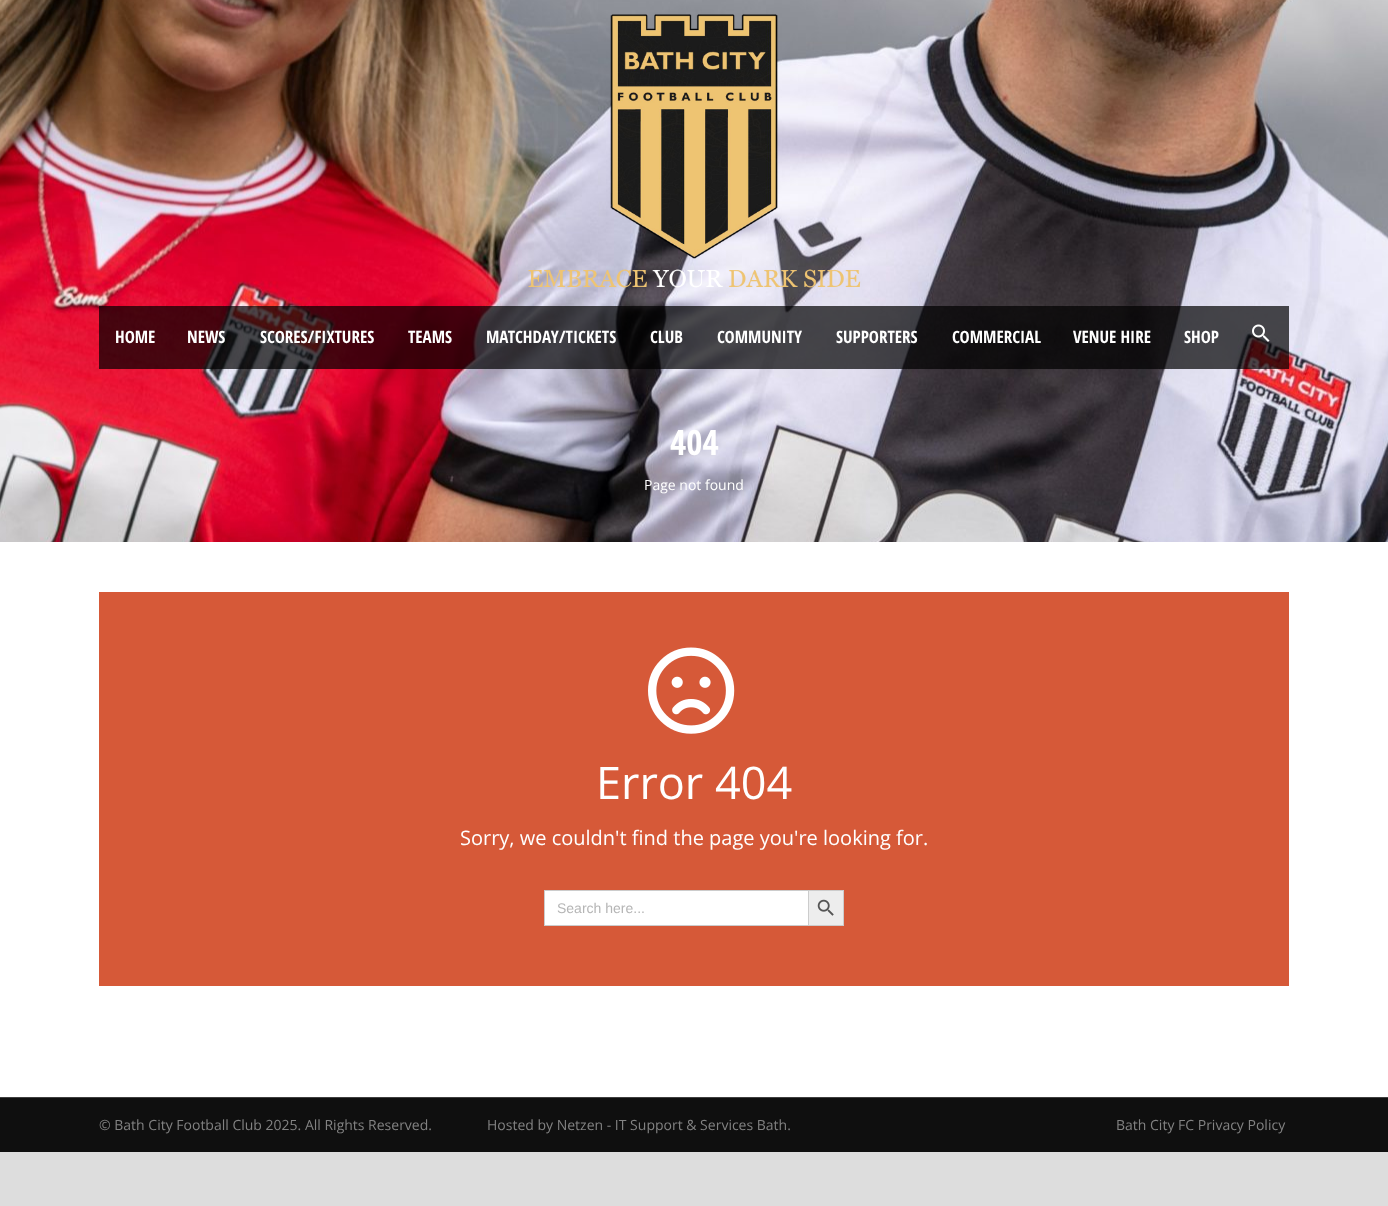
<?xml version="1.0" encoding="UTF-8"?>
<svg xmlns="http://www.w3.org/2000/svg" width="1388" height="1206">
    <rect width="100%" height="100%" fill="#DDDDDD"/>
    <rect x="0" y="542" width="1388" height="555" fill="#FFFFFF"/>
    <image x="0" y="0" width="1388" height="542" href="img_01.png"/>
    <image x="528" y="14" width="333" height="274" href="img_02.png"/>
    <rect x="99" y="306" width="1190" height="63" fill="#000000" fill-opacity="0.7"/>
    <text x="115" y="343" font-family="Open Sans Condensed" font-size="17" font-weight="700" fill="#FFFFFF">HOME</text>
    <text x="187" y="343" font-family="Open Sans Condensed" font-size="17" font-weight="700" fill="#FFFFFF">NEWS</text>
    <text x="260" y="343" font-family="Open Sans Condensed" font-size="17" font-weight="700" fill="#FFFFFF">SCORES/FIXTURES</text>
    <text x="408" y="343" font-family="Open Sans Condensed" font-size="17" font-weight="700" fill="#FFFFFF">TEAMS</text>
    <text x="486" y="343" font-family="Open Sans Condensed" font-size="17" font-weight="700" fill="#FFFFFF">MATCHDAY/TICKETS</text>
    <text x="650" y="343" font-family="Open Sans Condensed" font-size="17" font-weight="700" fill="#FFFFFF">CLUB</text>
    <text x="717" y="343" font-family="Open Sans Condensed" font-size="17" font-weight="700" fill="#FFFFFF">COMMUNITY</text>
    <text x="836" y="343" font-family="Open Sans Condensed" font-size="17" font-weight="700" fill="#FFFFFF">SUPPORTERS</text>
    <text x="952" y="343" font-family="Open Sans Condensed" font-size="17" font-weight="700" fill="#FFFFFF">COMMERCIAL</text>
    <text x="1073" y="343" font-family="Open Sans Condensed" font-size="17" font-weight="700" fill="#FFFFFF">VENUE HIRE</text>
    <text x="1184" y="343" font-family="Open Sans Condensed" font-size="17" font-weight="700" fill="#FFFFFF">SHOP</text>
    <image x="1252" y="324" width="18" height="18" href="img_03.png"/>
    <text x="670" y="455" font-family="Open Sans Condensed" font-size="35" font-weight="700" fill="#FFFFFF">404</text>
    <text x="644" y="490" font-family="Open Sans" font-size="14" fill="#FFFFFF">Page not found</text>
    <rect x="99" y="592" width="1190" height="394" fill="#D65938"/>
    <image x="648" y="647" width="87" height="87" href="img_04.png"/>
    <text x="596" y="799" font-family="Open Sans" font-size="45" fill="#FFFFFF">Error 404</text>
    <text x="460" y="845" font-family="Open Sans" font-size="20" fill="#FFFFFF">Sorry, we couldn't find the page you're looking for.</text>
    <rect x="545" y="891" width="263" height="34" fill="#FFFFFF"/>
    <rect x="544" y="890" width="264" height="1" fill="#CCCCCC"/>
    <rect x="544" y="925" width="264" height="1" fill="#CCCCCC"/>
    <rect x="544" y="890" width="1" height="36" fill="#CCCCCC"/>
    <text x="557" y="913" font-family="Liberation Sans" font-size="14" fill="#B5B5B5">Search here...</text>
    <rect x="808.5" y="890.5" width="35" height="35" fill="#EDEDED" stroke="#CCCCCC"/>
    <image x="817" y="899" width="17" height="17" href="img_05.png"/>
    <rect x="0" y="1098" width="1388" height="54" fill="#0F0F0F"/>
    <rect x="0" y="1097" width="1388" height="1" fill="#3F3F3F"/>
    <text x="99" y="1130" font-family="Open Sans" font-size="14" fill="#828282">© Bath City Football Club 2025. All Rights Reserved.</text>
    <text x="487" y="1130" font-family="Open Sans" font-size="14" fill="#828282">Hosted by Netzen - IT Support &amp; Services Bath.</text>
    <text x="1116" y="1130" font-family="Open Sans" font-size="14" fill="#828282">Bath City FC Privacy Policy</text>
</svg>
